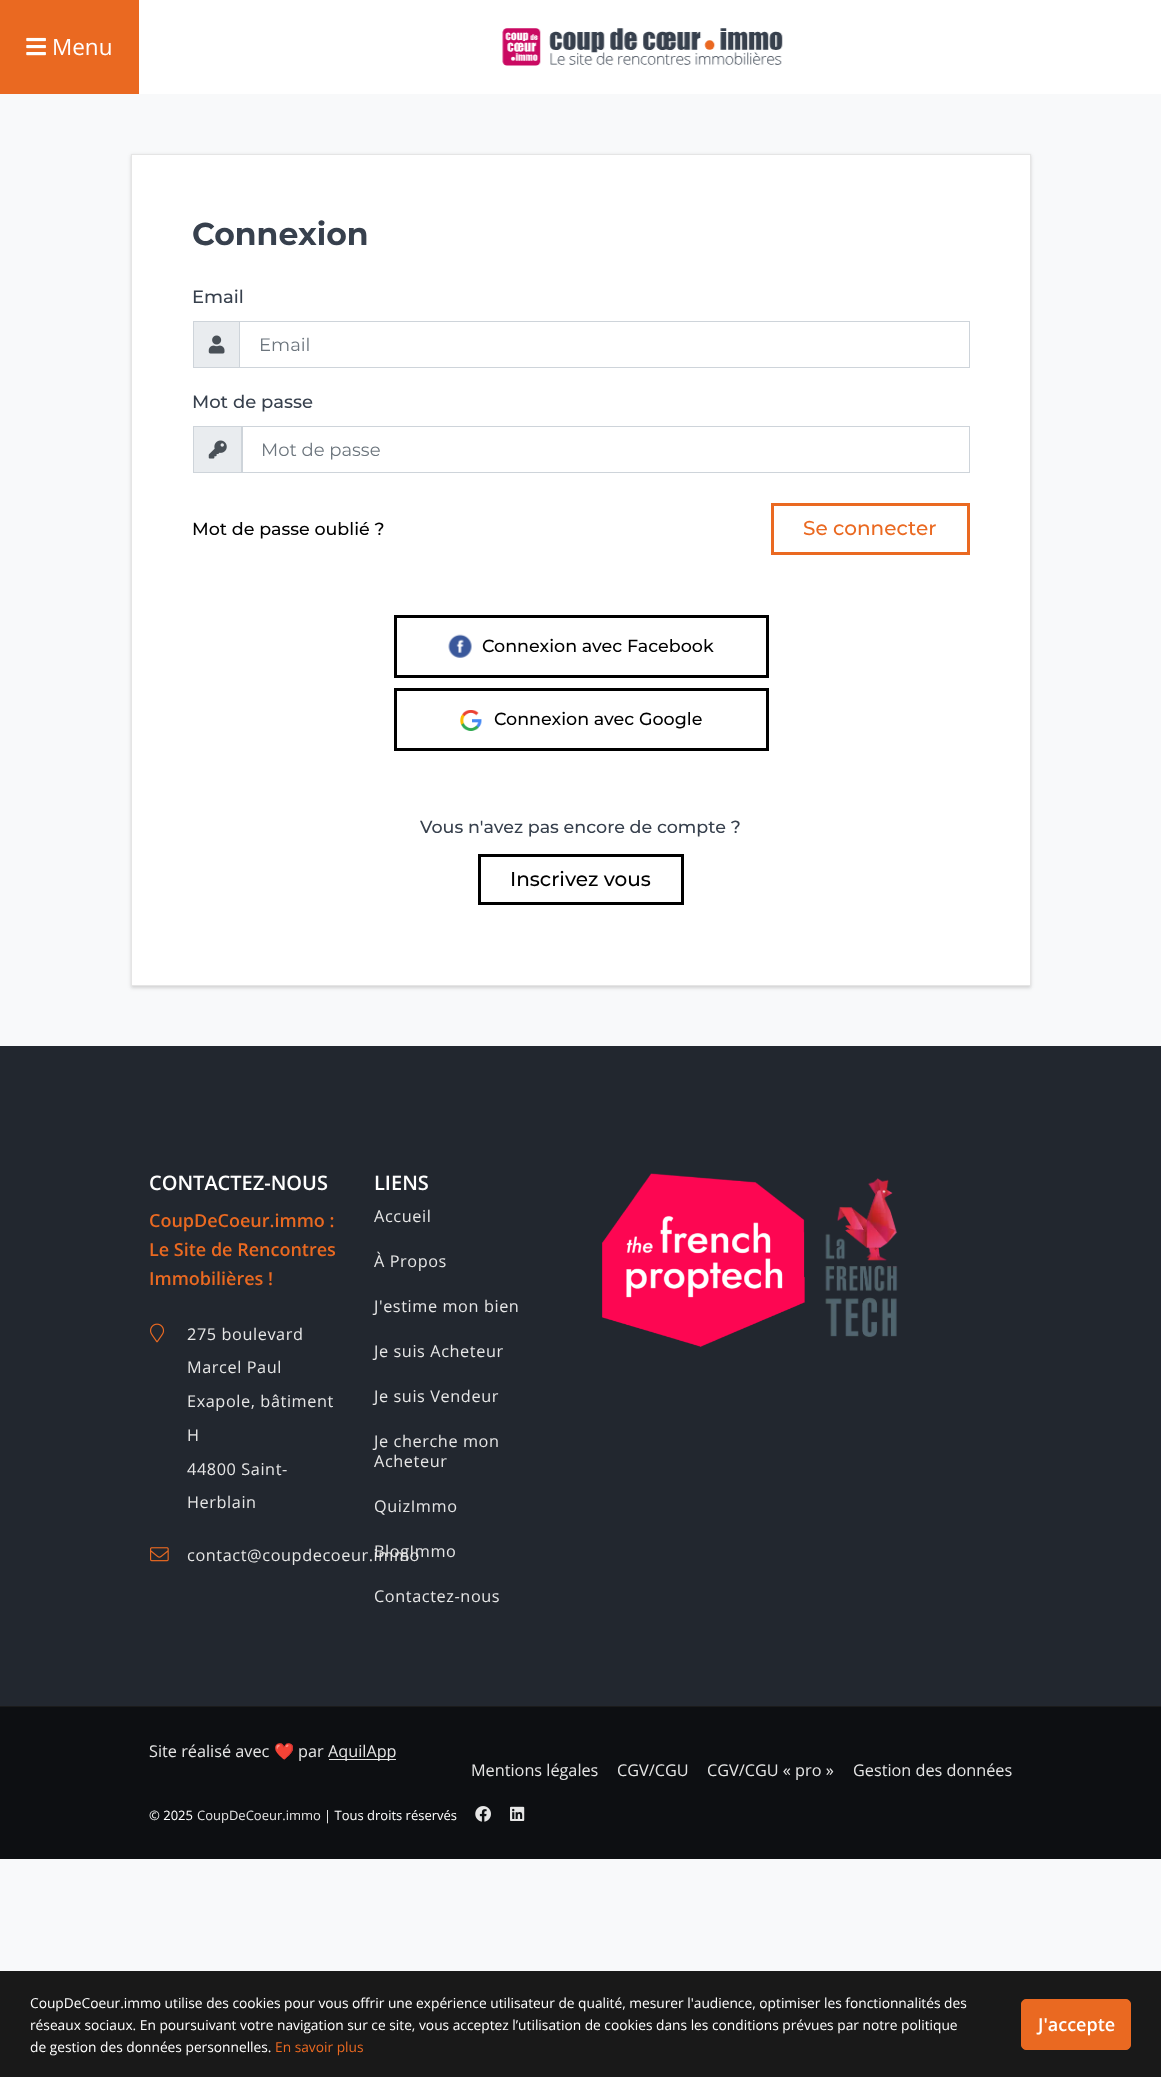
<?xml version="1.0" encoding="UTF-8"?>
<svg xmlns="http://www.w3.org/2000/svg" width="1161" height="2077">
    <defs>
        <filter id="blur1" x="-50%" y="-200%" width="200%" height="500%"><feGaussianBlur stdDeviation="1"/></filter>
        <filter id="blur2" x="-50%" y="-200%" width="200%" height="500%"><feGaussianBlur stdDeviation="2"/></filter>
    </defs>
    <rect width="100%" height="100%" fill="#F8F9FA"/>
    <rect x="139" y="0" width="1022" height="94" fill="#FFFFFF"/>
    <rect x="0" y="0" width="139" height="94" fill="#EA6921"/>
    <image x="26" y="37" width="20" height="19" href="img_01.png"/>
    <text x="52" y="55" font-family="Open Sans" font-size="22.5" fill="#FFFFFF">Menu</text>
    <image x="502" y="28" width="281" height="38" href="img_02.png"/>
    <rect x="131" y="155" width="900" height="833" fill="#000000" fill-opacity="0.06" filter="url(#blur1)"/>
    <rect x="131" y="155" width="900" height="833" fill="#000000" fill-opacity="0.1" filter="url(#blur2)"/>
    <rect x="131.5" y="154.5" width="899" height="831" fill="#FFFFFF" stroke="#E5E5E5"/>
    <text x="192" y="245" font-family="Montserrat" font-size="31.5" font-weight="700" fill="#37404D">Connexion</text>
    <text x="192" y="303" font-family="Montserrat" font-size="18" font-weight="500" fill="#37404D">Email</text>
    <rect x="193.5" y="321.5" width="46" height="46" fill="#E9ECEF" stroke="#CED4DA"/>
    <image x="208" y="335" width="17" height="19" href="img_03.png"/>
    <rect x="239.5" y="321.5" width="730" height="46" fill="none" stroke="#CED4DA"/>
    <text x="259" y="351" font-family="Montserrat" font-size="18" fill="#6C757D">Email</text>
    <text x="192" y="408" font-family="Montserrat" font-size="18" font-weight="500" fill="#37404D">Mot de passe</text>
    <rect x="194" y="427" width="47" height="45" fill="#E9ECEF"/>
    <rect x="193.5" y="426.5" width="49" height="46" fill="none" stroke="#CED4DA"/>
    <image x="208" y="440" width="19" height="19" href="img_04.png"/>
    <rect x="241.5" y="426.5" width="728" height="46" fill="none" stroke="#CED4DA"/>
    <text x="261" y="456" font-family="Montserrat" font-size="18" fill="#6C757D">Mot de passe</text>
    <text x="192" y="535" font-family="Montserrat" font-size="17.5" font-weight="500" fill="#000000">Mot de passe oublié ?</text>
    <rect x="772.5" y="504.5" width="196" height="49" fill="none" stroke="#EA6921" stroke-width="3"/>
    <text x="803" y="535" font-family="Montserrat" font-size="20" font-weight="500" fill="#EA6921">Se connecter</text>
    <rect x="395.5" y="616.5" width="372" height="60" fill="none" stroke="#000000" stroke-width="3"/>
    <image x="448" y="634" width="24" height="24" href="img_05.png"/>
    <text x="482" y="652" font-family="Montserrat" font-size="17.5" font-weight="500" fill="#000000">Connexion avec Facebook</text>
    <rect x="395.5" y="689.5" width="372" height="60" fill="none" stroke="#000000" stroke-width="3"/>
    <image x="460" y="710" width="22" height="21" href="img_06.png"/>
    <text x="494" y="725" font-family="Montserrat" font-size="17.5" font-weight="500" fill="#000000">Connexion avec Google</text>
    <text x="420" y="833" font-family="Montserrat" font-size="17.5" font-weight="500" fill="#37404D">Vous n'avez pas encore de compte ?</text>
    <rect x="479.5" y="855.5" width="203" height="48" fill="none" stroke="#000000" stroke-width="3"/>
    <text x="510" y="886" font-family="Montserrat" font-size="20" font-weight="500" fill="#000000">Inscrivez vous</text>
    <rect x="0" y="1046" width="1161" height="660" fill="#22272F"/>
    <text x="149" y="1190" font-family="Open Sans" font-size="20" font-weight="600" fill="#FFFFFF">CONTACTEZ-NOUS</text>
    <text font-family="Open Sans" font-size="18" font-weight="600" fill="#EA6921">
        <tspan x="149" y="1227">CoupDeCoeur.immo :</tspan>
        <tspan x="149" y="1256">Le Site de Rencontres</tspan>
        <tspan x="149" y="1285">Immobilières !</tspan>
    </text>
    <image x="150" y="1323" width="15" height="20" href="img_07.png"/>
    <text x="187" y="1340" font-family="Open Sans" font-size="16.25" letter-spacing="0.6" fill="#E6E6E6">275 boulevard</text>
    <text x="187" y="1373" font-family="Open Sans" font-size="16.25" letter-spacing="0.6" fill="#E6E6E6">Marcel Paul</text>
    <text x="187" y="1407" font-family="Open Sans" font-size="16.25" letter-spacing="0.6" fill="#E6E6E6">Exapole, bâtiment</text>
    <text x="187" y="1441" font-family="Open Sans" font-size="16.25" letter-spacing="0.6" fill="#E6E6E6">H</text>
    <text x="187" y="1475" font-family="Open Sans" font-size="16.25" letter-spacing="0.6" fill="#E6E6E6">44800 Saint-</text>
    <text x="187" y="1508" font-family="Open Sans" font-size="16.25" letter-spacing="0.6" fill="#E6E6E6">Herblain</text>
    <image x="150" y="1547" width="19" height="15" href="img_08.png"/>
    <text x="187" y="1561" font-family="Open Sans" font-size="16.25" letter-spacing="0.6" fill="#E6E6E6">contact@coupdecoeur.immo</text>
    <text x="374" y="1190" font-family="Open Sans" font-size="20" font-weight="600" fill="#FFFFFF">LIENS</text>
    <text x="374" y="1222" font-family="Open Sans" font-size="16.25" letter-spacing="0.6" fill="#E6E6E6">Accueil</text>
    <text x="374" y="1267" font-family="Open Sans" font-size="16.25" letter-spacing="0.6" fill="#E6E6E6">À Propos</text>
    <text x="374" y="1312" font-family="Open Sans" font-size="16.25" letter-spacing="0.6" fill="#E6E6E6">J'estime mon bien</text>
    <text x="374" y="1357" font-family="Open Sans" font-size="16.25" letter-spacing="0.6" fill="#E6E6E6">Je suis Acheteur</text>
    <text x="374" y="1402" font-family="Open Sans" font-size="16.25" letter-spacing="0.6" fill="#E6E6E6">Je suis Vendeur</text>
    <text font-family="Open Sans" font-size="16.25" letter-spacing="0.6" fill="#E6E6E6">
        <tspan x="374" y="1447">Je cherche mon</tspan>
        <tspan x="374" y="1467">Acheteur</tspan>
    </text>
    <text x="374" y="1512" font-family="Open Sans" font-size="16.25" letter-spacing="0.6" fill="#E6E6E6">QuizImmo</text>
    <text x="374" y="1557" font-family="Open Sans" font-size="16.25" letter-spacing="0.6" fill="#E6E6E6">BlogImmo</text>
    <text x="374" y="1602" font-family="Open Sans" font-size="16.25" letter-spacing="0.6" fill="#E6E6E6">Contactez-nous</text>
    <image x="602" y="1173" width="203" height="174" href="img_09.png"/>
    <image x="825" y="1178" width="73" height="159" href="img_10.png"/>
    <rect x="0" y="1707" width="1161" height="152" fill="#0D0F12"/>
    <rect x="0" y="1706" width="1161" height="1" fill="#1B1B1B"/>
    <text x="149" y="1757" font-family="Open Sans" font-size="16.25" fill="#E6E6E6">Site réalisé avec</text>
    <text x="274" y="1757" font-family="Noto Color Emoji" font-size="16.25" fill="#E6E6E6">❤️</text>
    <text x="298" y="1757" font-family="Open Sans" font-size="16.25" fill="#E6E6E6">par</text>
    <rect x="329" y="1759" width="67" height="1" fill="#E6E6E6"/>
    <text x="328" y="1757" font-family="Open Sans" font-size="16.25" fill="#E6E6E6">AquilApp</text>
    <text x="471" y="1776" font-family="Open Sans" font-size="16.25" fill="#E6E6E6">Mentions légales</text>
    <text x="617" y="1776" font-family="Open Sans" font-size="16.25" fill="#E6E6E6">CGV/CGU</text>
    <text x="707" y="1776" font-family="Open Sans" font-size="16.25" fill="#E6E6E6">CGV/CGU « pro »</text>
    <text x="853" y="1776" font-family="Open Sans" font-size="16.25" fill="#E6E6E6">Gestion des données</text>
    <text x="149" y="1820" font-family="Open Sans" font-size="13" fill="#FFFFFF">© 2025</text>
    <text x="197" y="1820" font-family="Open Sans" font-size="13" fill="#E6E6E6">CoupDeCoeur.immo</text>
    <text x="324" y="1820" font-family="Open Sans" font-size="13" fill="#FFFFFF">| Tous droits réservés</text>
    <image x="475" y="1806" width="16" height="16" href="img_11.png"/>
    <image x="510" y="1806" width="15" height="15" href="img_12.png"/>
    <rect x="0" y="1971" width="1161" height="106" fill="#191919"/>
    <text font-family="Open Sans" font-size="13.75" fill="#FFFFFF">
        <tspan x="30" y="2008">CoupDeCoeur.immo utilise des cookies pour vous offrir une expérience utilisateur de qualité, mesurer l'audience, optimiser les fonctionnalités des</tspan>
        <tspan x="30" y="2030">réseaux sociaux. En poursuivant votre navigation sur ce site, vous acceptez l’utilisation de cookies dans les conditions prévues par notre politique</tspan>
        <tspan x="30" y="2052">de gestion des données personnelles.</tspan>
    </text>
    <text x="275" y="2052" font-family="Open Sans" font-size="13.75" fill="#EA6921">En savoir plus</text>
    <rect x="1021.5" y="1999.5" width="109" height="50" rx="4.5" fill="#EA6921" stroke="#EA6921"/>
    <text x="1038" y="2031" font-family="Open Sans" font-size="18" font-weight="600" fill="#FFFFFF">J'accepte</text>
</svg>
